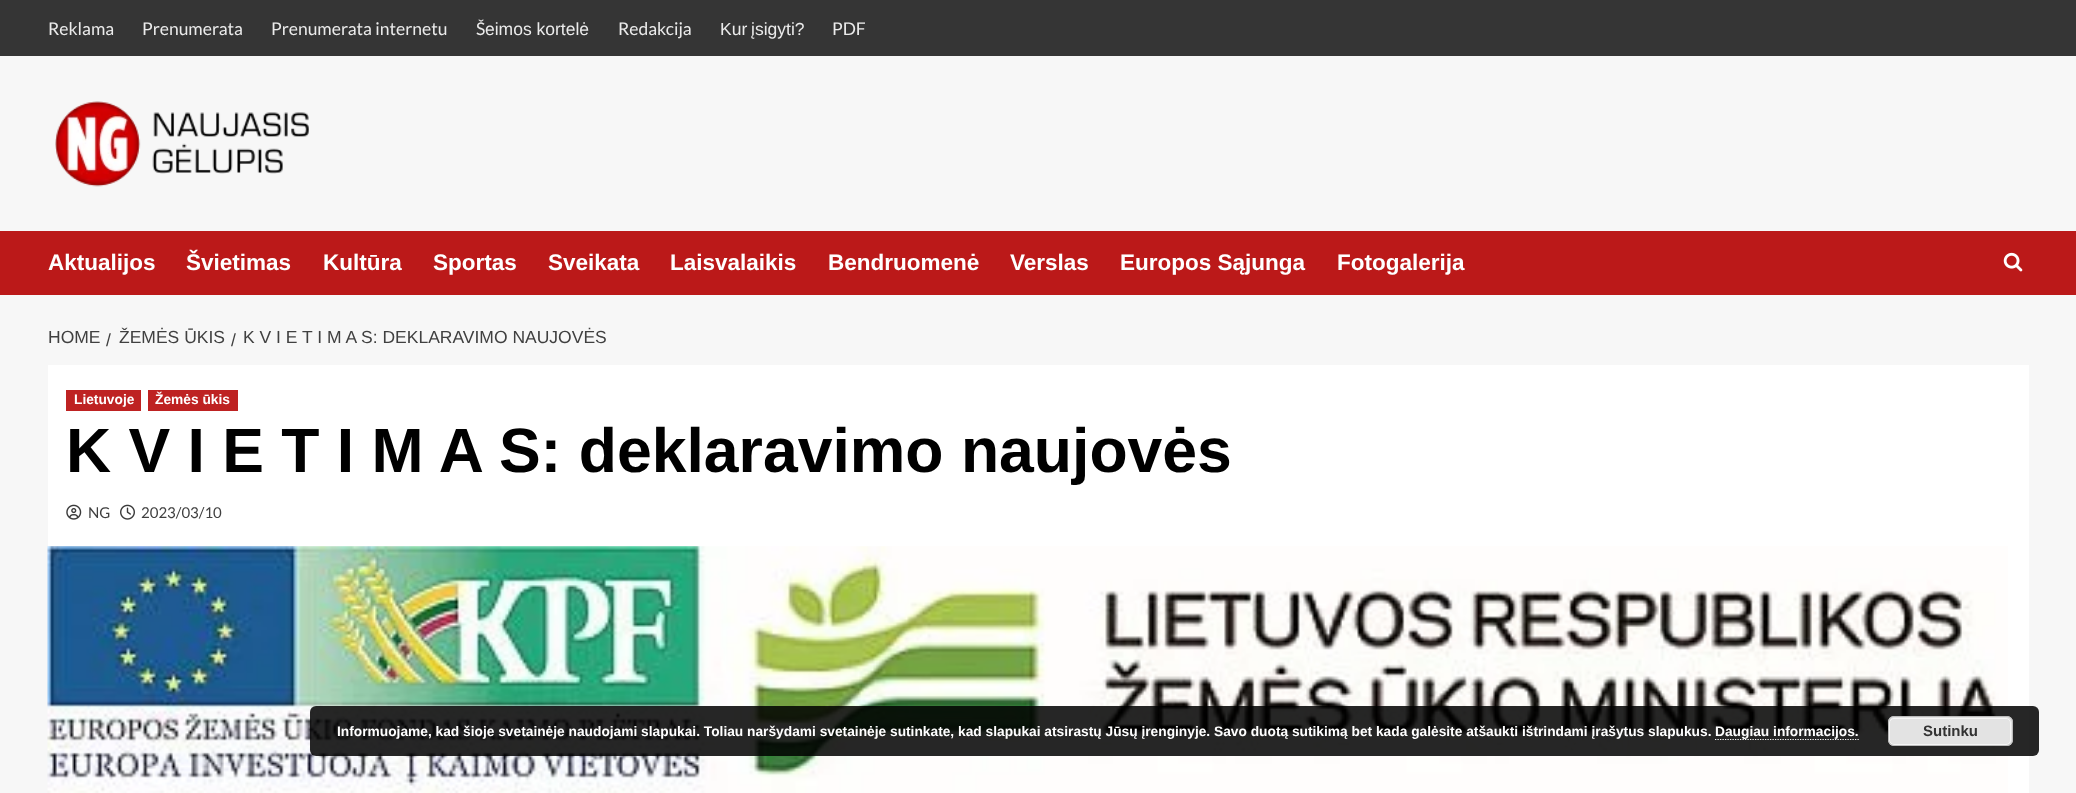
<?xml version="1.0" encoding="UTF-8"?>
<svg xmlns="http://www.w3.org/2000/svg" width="2076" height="793">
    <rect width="100%" height="100%" fill="#F7F7F7"/>
    <rect x="0" y="0" width="2076" height="56" fill="#353535"/>
    <text x="48" y="35" font-family="Lato" font-size="17.5" fill="#EBEBEB">Reklama</text>
    <text x="142" y="35" font-family="Lato" font-size="17.5" fill="#EBEBEB">Prenumerata</text>
    <text x="271" y="35" font-family="Lato" font-size="17.5" fill="#EBEBEB">Prenumerata internetu</text>
    <text x="476" y="35" font-family="Lato" font-size="17.5" fill="#EBEBEB">Š</text>
    <text x="485" y="35" font-family="Liberation Sans" font-size="17.5" fill="#EBEBEB">eimos kortelė</text>
    <text x="618" y="35" font-family="Lato" font-size="17.5" fill="#EBEBEB">Redakcija</text>
    <text x="720" y="35" word-spacing="-1" font-family="Liberation Sans" font-size="17.5" fill="#EBEBEB">Kur įsigyti?</text>
    <text x="832" y="35" font-family="Lato" font-size="17.5" fill="#EBEBEB">PDF</text>
    <image x="55" y="101" width="254" height="86" href="img_01.png"/>
    <rect x="0" y="231" width="2076" height="64" fill="#BB1919"/>
    <text x="48" y="270" font-family="Liberation Sans" font-size="22.5" font-weight="700" fill="#FFFFFF">Aktualijos</text>
    <text x="186" y="270" font-family="Liberation Sans" font-size="22.5" font-weight="700" fill="#FFFFFF">Švietimas</text>
    <text x="323" y="270" font-family="Liberation Sans" font-size="22.5" font-weight="700" fill="#FFFFFF">Kultūra</text>
    <text x="433" y="270" font-family="Liberation Sans" font-size="22.5" font-weight="700" fill="#FFFFFF">Sportas</text>
    <text x="548" y="270" font-family="Liberation Sans" font-size="22.5" font-weight="700" fill="#FFFFFF">Sveikata</text>
    <text x="670" y="270" font-family="Liberation Sans" font-size="22.5" font-weight="700" fill="#FFFFFF">Laisvalaikis</text>
    <text x="828" y="270" font-family="Liberation Sans" font-size="22.5" font-weight="700" fill="#FFFFFF">Bendruomenė</text>
    <text x="1010" y="270" font-family="Liberation Sans" font-size="22.5" font-weight="700" fill="#FFFFFF">Verslas</text>
    <text x="1120" y="270" font-family="Liberation Sans" font-size="22.5" font-weight="700" fill="#FFFFFF">Europos Sąjunga</text>
    <text x="1337" y="270" font-family="Liberation Sans" font-size="22.5" font-weight="700" fill="#FFFFFF">Fotogalerija</text>
    <image x="2003" y="252" width="20" height="20" href="img_02.png"/>
    <text x="48" y="343" font-family="Liberation Sans" font-size="17.5" fill="#404040">HOME</text>
    <text x="106" y="346" font-family="Liberation Sans" font-size="17.5" fill="#404040">/</text>
    <text x="119" y="343" font-family="Liberation Sans" font-size="17.5" fill="#404040">ŽEMĖS ŪKIS</text>
    <text x="231" y="346" font-family="Liberation Sans" font-size="17.5" fill="#404040">/</text>
    <text x="243" y="343" font-family="Liberation Sans" font-size="17.5" fill="#404040">K V I E T I M A S: DEKLARAVIMO NAUJOVĖS</text>
    <rect x="48" y="365" width="1981" height="428" fill="#FFFFFF"/>
    <rect x="66" y="390" width="75" height="21" fill="#BE2222"/>
    <text x="74" y="404" font-family="Liberation Sans" font-size="13.75" font-weight="700" fill="#FFFFFF">Lietuvoje</text>
    <rect x="148" y="390" width="90" height="21" fill="#BE2222"/>
    <text x="155" y="404" font-family="Liberation Sans" font-size="13.75" font-weight="700" fill="#FFFFFF">Žemės ūkis</text>
    <text x="66" y="472" font-family="Liberation Sans" font-size="62.5" font-weight="700" fill="#000000">K V I E T I M A S: deklaravimo naujovės</text>
    <image x="66" y="504" width="16" height="16" href="img_03.png"/>
    <text x="88" y="518" font-family="Lato" font-size="15" fill="#404040">NG</text>
    <image x="120" y="504" width="15" height="16" href="img_04.png"/>
    <text x="141" y="518" font-family="Lato" font-size="15" fill="#404040">2023/03/10</text>
    <image x="47" y="546" width="1961" height="247" href="img_05.png"/>
    <rect x="310" y="706" width="1729" height="50" rx="6" fill="#000000" fill-opacity="0.85"/>
    <text x="337" y="736" font-family="Liberation Sans" font-size="13.75" font-weight="700" fill="#FFFFFF">Informuojame, kad šioje svetainėje naudojami slapukai. Toliau naršydami svetainėje sutinkate, kad slapukai atsirastų Jūsų įrenginyje. Savo duotą sutikimą bet kada galėsite atšaukti ištrindami įrašytus slapukus.</text>
    <path d="M 1715 739.5 H 1859" fill="none" stroke="#FFFFFF" stroke-width="1.2" stroke-dasharray="1.25 1.25"/>
    <text x="1715" y="736" font-family="Liberation Sans" font-size="13.75" font-weight="700" fill="#FFFFFF">Daugiau informacijos.</text>
    <rect x="1888" y="716" width="125" height="30" rx="6" fill="#E3E3E3"/>
    <rect x="1889.5" y="718.5" width="121" height="26" rx="4.5" fill="none" stroke="#F6F6F6"/>
    <rect x="1888.5" y="716.5" width="124" height="29" rx="5.5" fill="none" stroke="#BBBBBB"/>
    <text x="1923" y="736" font-family="Liberation Sans" font-size="15" font-weight="700" fill="#333333">Sutinku</text>
</svg>
